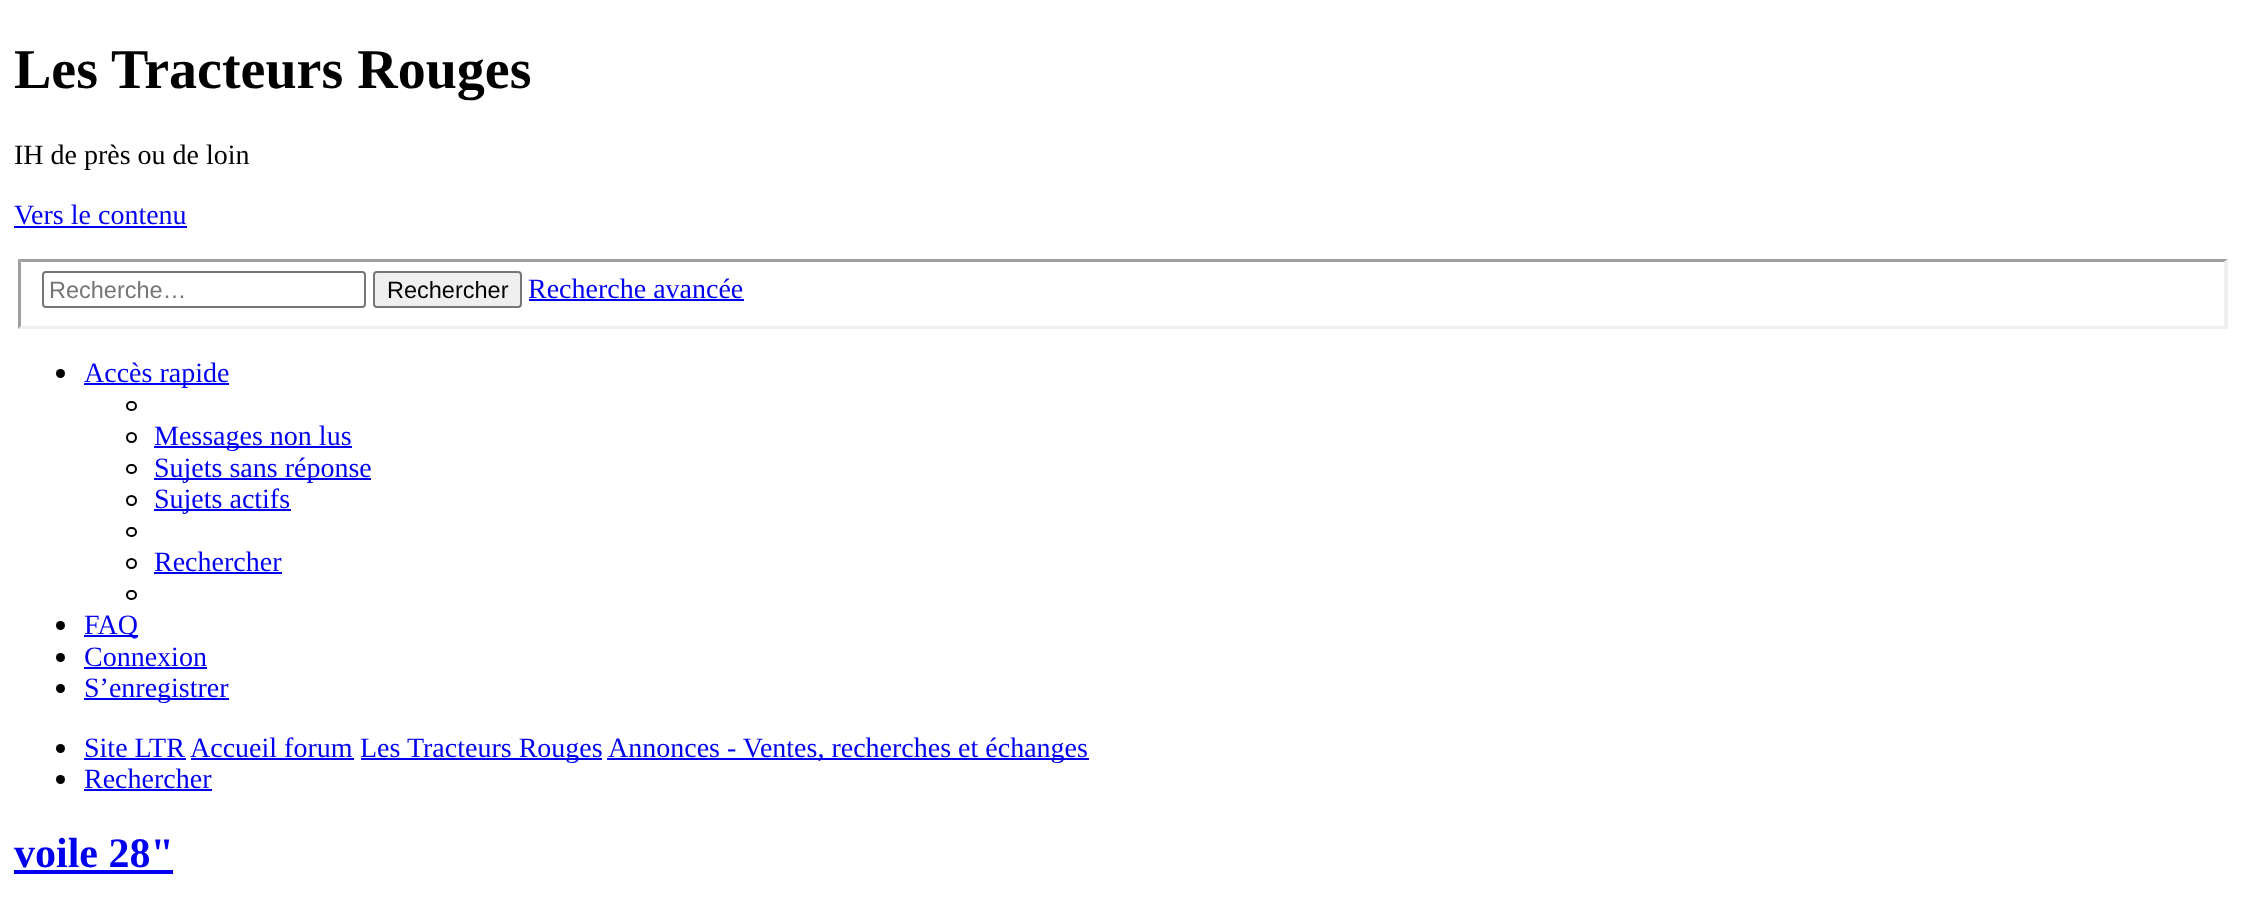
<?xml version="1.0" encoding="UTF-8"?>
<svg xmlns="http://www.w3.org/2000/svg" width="2244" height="913">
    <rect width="100%" height="100%" fill="#FFFFFF"/>
    <text x="14" y="88" font-family="Liberation Serif" font-size="56" font-weight="700" fill="#000000">Les Tracteurs Rouges</text>
    <text x="14" y="164" font-family="Liberation Serif" font-size="28" fill="#000000">IH de près ou de loin</text>
    <text x="14" y="224" font-family="Liberation Serif" font-size="28" fill="#0000EE">Vers le contenu</text>
    <rect x="14" y="226" width="173" height="2" fill="#0000EE"/>
    <path d="M 18 259 H 2228 L 2224 262 H 21 Z" fill="#9F9F9F"/>
    <path d="M 2228 259 V 329 L 2224 326 V 262 Z" fill="#EFEFEF"/>
    <path d="M 2228 329 H 18 L 21 326 H 2224 Z" fill="#EFEFEF"/>
    <path d="M 18 329 V 259 L 21 262 V 326 Z" fill="#9F9F9F"/>
    <rect x="43" y="272" width="322" height="35" rx="3" fill="none" stroke="#767676" stroke-width="2"/>
    <text x="49" y="298" font-family="Liberation Sans" font-size="23.5" fill="#757575">Recherche…</text>
    <rect x="374" y="272" width="147" height="35" rx="3" fill="#EFEFEF" stroke="#767676" stroke-width="2"/>
    <text x="387" y="298" font-family="Liberation Sans" font-size="23.5" fill="#000000">Rechercher</text>
    <text x="528" y="298" font-family="Liberation Serif" font-size="28" fill="#0000EE">Recherche avancée</text>
    <rect x="529" y="299" width="215" height="2" fill="#0000EE"/>
    <circle cx="60.5" cy="373.5" r="4.5" fill="#000000"/>
    <rect x="84" y="383" width="145" height="2" fill="#0000EE"/>
    <text x="84" y="382" font-family="Liberation Serif" font-size="28" fill="#0000EE">Accès rapide</text>
    <rect x="127" y="402" width="9" height="8" rx="4" fill="none" stroke="#000000" stroke-width="2"/>
    <circle cx="131.5" cy="437.5" r="4.5" fill="none" stroke="#000000" stroke-width="2"/>
    <rect x="154" y="446" width="198" height="2" fill="#0000EE"/>
    <text x="154" y="445" font-family="Liberation Serif" font-size="28" fill="#0000EE">Messages non lus</text>
    <rect x="127" y="465" width="9" height="8" rx="4" fill="none" stroke="#000000" stroke-width="2"/>
    <rect x="154" y="478" width="217" height="2" fill="#0000EE"/>
    <text x="154" y="477" font-family="Liberation Serif" font-size="28" fill="#0000EE">Sujets sans réponse</text>
    <circle cx="131.5" cy="500.5" r="4.5" fill="none" stroke="#000000" stroke-width="2"/>
    <rect x="154" y="509" width="137" height="2" fill="#0000EE"/>
    <text x="154" y="508" font-family="Liberation Serif" font-size="28" fill="#0000EE">Sujets actifs</text>
    <rect x="127" y="528" width="9" height="8" rx="4" fill="none" stroke="#000000" stroke-width="2"/>
    <circle cx="131.5" cy="563.5" r="4.5" fill="none" stroke="#000000" stroke-width="2"/>
    <text x="154" y="571" font-family="Liberation Serif" font-size="28" fill="#0000EE">Rechercher</text>
    <rect x="154" y="572" width="128" height="2" fill="#0000EE"/>
    <rect x="127" y="591" width="9" height="8" rx="4" fill="none" stroke="#000000" stroke-width="2"/>
    <circle cx="60.5" cy="625.5" r="4.5" fill="#000000"/>
    <rect x="84" y="635" width="54" height="2" fill="#0000EE"/>
    <text x="84" y="634" font-family="Liberation Serif" font-size="28" fill="#0000EE">FAQ</text>
    <circle cx="60.5" cy="657.5" r="4.5" fill="#000000"/>
    <text x="84" y="666" font-family="Liberation Serif" font-size="28" fill="#0000EE">Connexion</text>
    <rect x="84" y="667" width="123" height="2" fill="#0000EE"/>
    <circle cx="60.5" cy="688.5" r="4.5" fill="#000000"/>
    <rect x="84" y="698" width="145" height="2" fill="#0000EE"/>
    <text x="84" y="697" font-family="Liberation Serif" font-size="28" fill="#0000EE">S’enregistrer</text>
    <circle cx="60.5" cy="748.5" r="4.5" fill="#000000"/>
    <text x="84" y="757" font-family="Liberation Serif" font-size="28" fill="#0000EE">Site LTR</text>
    <rect x="84" y="758" width="102" height="2" fill="#0000EE"/>
    <text x="190" y="757" font-family="Liberation Serif" font-size="28" fill="#0000EE">Accueil forum</text>
    <rect x="191" y="758" width="163" height="2" fill="#0000EE"/>
    <rect x="361" y="758" width="241" height="2" fill="#0000EE"/>
    <text x="360" y="757" font-family="Liberation Serif" font-size="28" fill="#0000EE">Les Tracteurs Rouges</text>
    <rect x="607" y="758" width="482" height="2" fill="#0000EE"/>
    <text x="608" y="757" font-family="Liberation Serif" font-size="28" fill="#0000EE">Annonces - Ventes, recherches et échanges</text>
    <circle cx="60.5" cy="779.5" r="4.5" fill="#000000"/>
    <text x="84" y="788" font-family="Liberation Serif" font-size="28" fill="#0000EE">Rechercher</text>
    <rect x="84" y="789" width="128" height="2" fill="#0000EE"/>
    <text x="14" y="867" font-family="Liberation Serif" font-size="42" font-weight="700" fill="#0000EE">voile 28"</text>
    <rect x="14" y="870" width="159" height="4" fill="#0000EE"/>
</svg>
